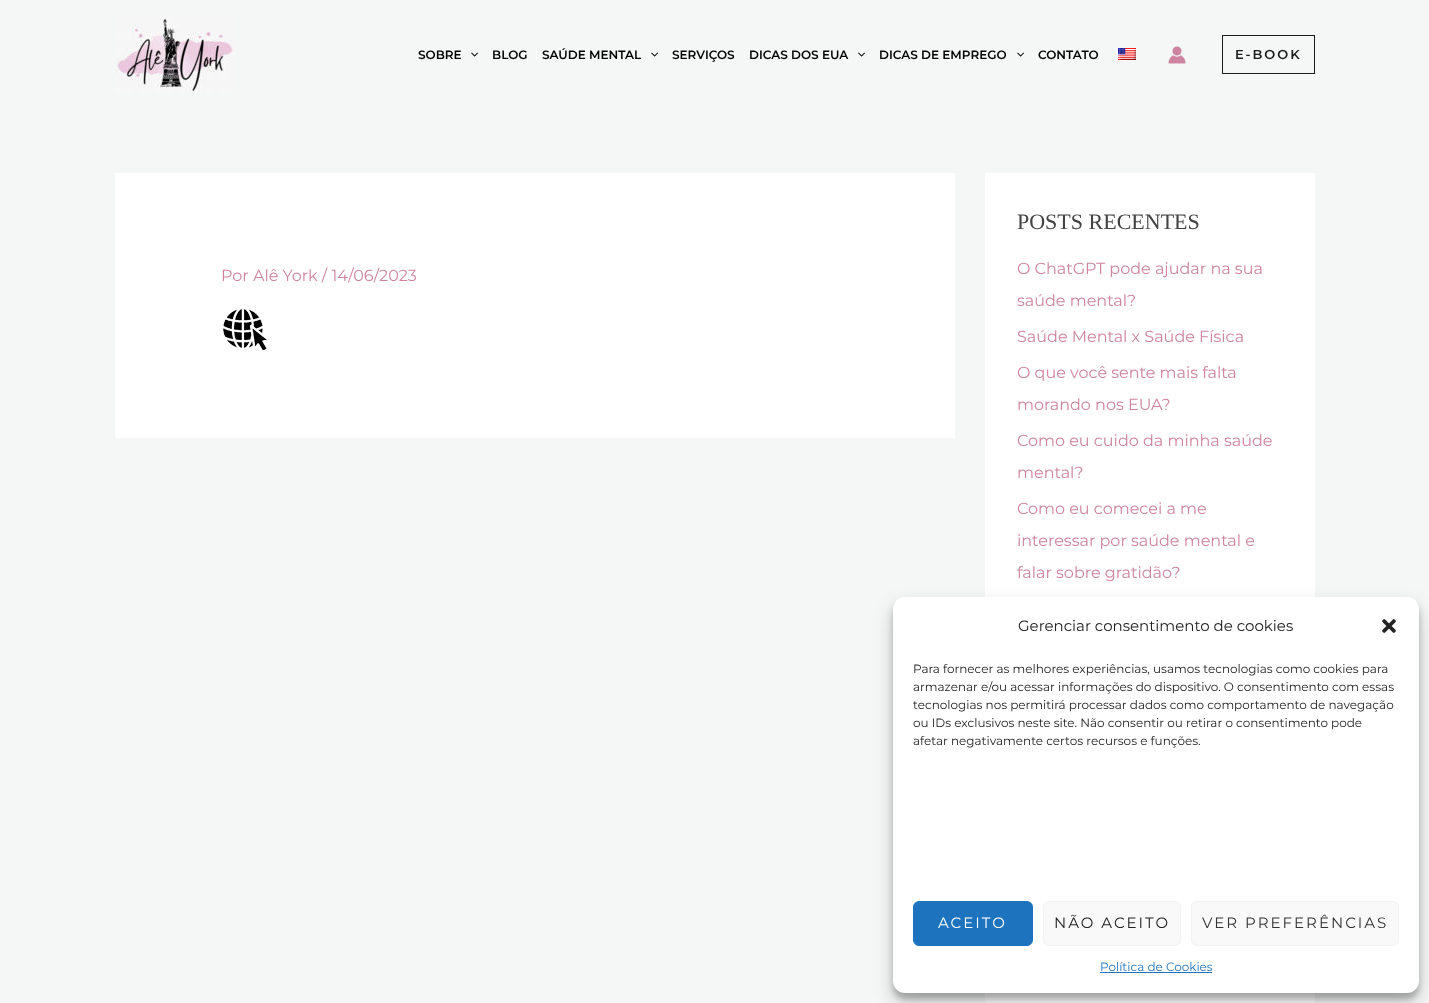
<?xml version="1.0" encoding="UTF-8"?>
<svg xmlns="http://www.w3.org/2000/svg" width="1429" height="1003">
    <defs>
        <filter id="blur1" x="-50%" y="-200%" width="200%" height="500%"><feGaussianBlur stdDeviation="3"/></filter>
        <filter id="blur2" x="-50%" y="-200%" width="200%" height="500%"><feGaussianBlur stdDeviation="10"/></filter>
    </defs>
    <rect width="100%" height="100%" fill="#F5F6F6"/>
    <image x="115" y="16" width="120" height="77" href="img_01.png"/>
    <text x="418" y="59" font-family="Montserrat" font-size="12" font-weight="600" fill="#000000">SOBRE</text>
    <image x="471" y="52" width="7" height="5" href="img_02.png"/>
    <text x="492" y="59" font-family="Montserrat" font-size="12" font-weight="600" fill="#000000">BLOG</text>
    <text x="542" y="59" font-family="Montserrat" font-size="12" font-weight="600" fill="#000000">SAÚDE MENTAL</text>
    <image x="651" y="52" width="7" height="5" href="img_02.png"/>
    <text x="672" y="59" font-family="Montserrat" font-size="12" font-weight="600" fill="#000000">SERVIÇOS</text>
    <text x="749" y="59" font-family="Montserrat" font-size="12" font-weight="600" fill="#000000">DICAS DOS EUA</text>
    <image x="858" y="52" width="7" height="5" href="img_02.png"/>
    <text x="879" y="59" font-family="Montserrat" font-size="12" font-weight="600" fill="#000000">DICAS DE EMPREGO</text>
    <image x="1017" y="52" width="7" height="5" href="img_02.png"/>
    <text x="1038" y="59" font-family="Montserrat" font-size="12" font-weight="600" fill="#000000">CONTATO</text>
    <image x="1118" y="48" width="18" height="12" href="img_03.png"/>
    <image x="1168" y="46" width="18" height="18" href="img_04.png"/>
    <rect x="1222.5" y="35.5" width="92" height="38" fill="none" stroke="#1A1A1A"/>
    <text x="1235" y="59" font-family="Montserrat" font-size="13" font-weight="600" letter-spacing="2" fill="#1A1A1A">E-BOOK</text>
    <rect x="115" y="173" width="840" height="265" fill="#FFFFFF"/>
    <text x="221" y="281" font-family="Montserrat" font-size="16" fill="#CE84A0">Por Alê York / 14/06/2023</text>
    <image x="223" y="309" width="44" height="41" href="img_05.png"/>
    <rect x="985" y="173" width="330" height="424" fill="#FFFFFF"/>
    <text x="1017" y="229" font-family="Liberation Serif" font-size="22" fill="#424242">POSTS RECENTES</text>
    <text x="1017" y="274" font-family="Montserrat" font-size="16" fill="#CE84A0">O ChatGPT pode ajudar na sua</text>
    <text x="1017" y="306" font-family="Montserrat" font-size="16" fill="#CE84A0">saúde mental?</text>
    <text x="1017" y="342" font-family="Montserrat" font-size="16" fill="#CE84A0">Saúde Mental x Saúde Física</text>
    <text x="1017" y="378" font-family="Montserrat" font-size="16" fill="#CE84A0">O que você sente mais falta</text>
    <text x="1017" y="410" font-family="Montserrat" font-size="16" fill="#CE84A0">morando nos EUA?</text>
    <text x="1017" y="446" font-family="Montserrat" font-size="16" fill="#CE84A0">Como eu cuido da minha saúde</text>
    <text x="1017" y="478" font-family="Montserrat" font-size="16" fill="#CE84A0">mental?</text>
    <text x="1017" y="514" font-family="Montserrat" font-size="16" fill="#CE84A0">Como eu comecei a me</text>
    <text x="1017" y="546" font-family="Montserrat" font-size="16" fill="#CE84A0">interessar por saúde mental e</text>
    <text x="1017" y="578" font-family="Montserrat" font-size="16" fill="#CE84A0">falar sobre gratidão?</text>
    <rect x="985" y="993" width="330" height="10" fill="#FFFFFF"/>
    <rect x="893" y="603" width="526" height="396" rx="12" fill="#000000" fill-opacity="0.23" filter="url(#blur1)"/>
    <rect x="893" y="607" width="526" height="396" rx="12" fill="#000000" fill-opacity="0.19" filter="url(#blur2)"/>
    <rect x="893" y="597" width="526" height="396" rx="12" fill="#FFFFFF"/>
    <text x="1018" y="631" font-family="Montserrat" font-size="15" fill="#222222">Gerenciar consentimento de cookies</text>
    <image x="1382" y="619" width="14" height="14" href="img_06.png"/>
    <text font-family="Montserrat" font-size="12" fill="#222222">
        <tspan x="913" y="673">Para fornecer as melhores experiências, usamos tecnologias como cookies para</tspan>
        <tspan x="913" y="691">armazenar e/ou acessar informações do dispositivo. O consentimento com essas</tspan>
        <tspan x="913" y="709">tecnologias nos permitirá processar dados como comportamento de navegação</tspan>
        <tspan x="913" y="727">ou IDs exclusivos neste site. Não consentir ou retirar o consentimento pode</tspan>
        <tspan x="913" y="745">afetar negativamente certos recursos e funções.</tspan>
    </text>
    <rect x="913.5" y="901.5" width="119" height="44" rx="5.5" fill="#1E73BE" stroke="#1E73BE"/>
    <text x="938" y="928" font-family="Montserrat" font-size="15" letter-spacing="2" fill="#FFFFFF">ACEITO</text>
    <rect x="1043.5" y="901.5" width="137" height="44" rx="5.5" fill="#F9F9F9" stroke="#F2F2F2"/>
    <text x="1054" y="928" font-family="Montserrat" font-size="15" letter-spacing="2" fill="#222222">NÃO ACEITO</text>
    <rect x="1191.5" y="901.5" width="207" height="44" rx="5.5" fill="#F9F9F9" stroke="#F2F2F2"/>
    <text x="1202" y="928" font-family="Montserrat" font-size="15" letter-spacing="2" fill="#333333">VER PREFERÊNCIAS</text>
    <text x="1100" y="971" font-family="Montserrat" font-size="12" fill="#1E73BE">Política de Cookies</text>
    <rect x="1100" y="972" width="112" height="1" fill="#1E73BE"/>
</svg>
